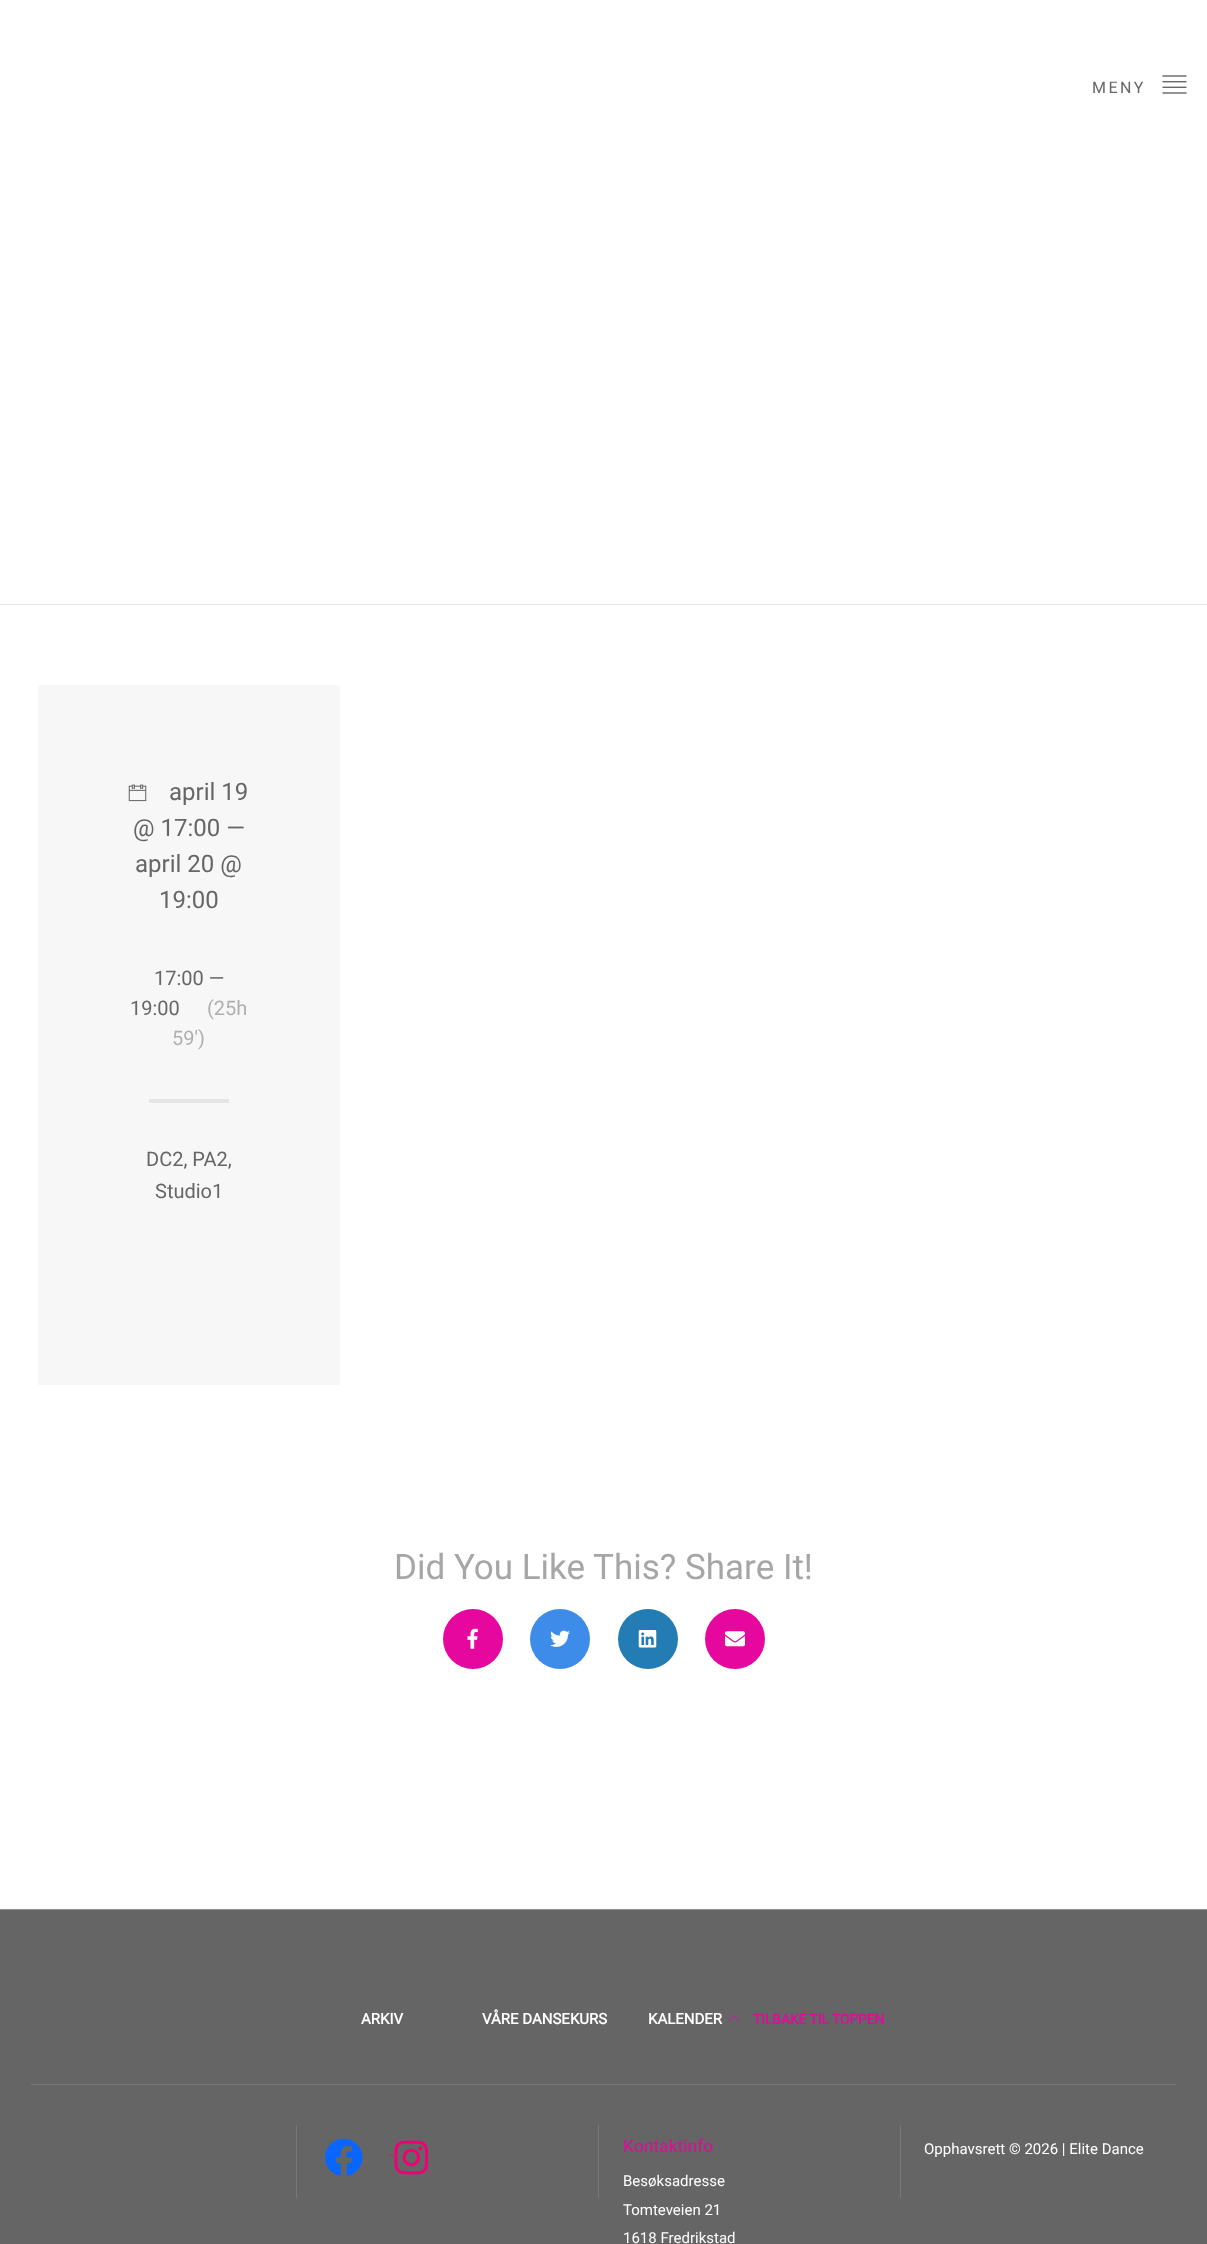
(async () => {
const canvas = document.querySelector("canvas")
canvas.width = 1207
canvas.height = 2244
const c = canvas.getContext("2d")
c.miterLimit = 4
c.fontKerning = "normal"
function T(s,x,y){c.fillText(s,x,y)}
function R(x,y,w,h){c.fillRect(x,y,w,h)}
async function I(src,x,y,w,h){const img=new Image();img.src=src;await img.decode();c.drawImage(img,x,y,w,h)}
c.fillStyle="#fff"
R(0,0,1207,2244)
c.letterSpacing="2.5px"
c.font="16px Roboto"
c.fillStyle="#666"
T("MENY",1092,93)
await I("1.png",1162,75,25,19)
c.fillStyle="#e8e8e8"
R(0,604,1207,1)
await I("2.png",128,784,19,18)
c.fillStyle="#6666660d"
R(38,685,302,700)
c.letterSpacing="0px"
c.font="24px Roboto"
c.fillStyle="#666"
T("april 19",169,800)
T("@ 17:00 —",133,836)
T("april 20 @",135,872)
T("19:00",159,908)
c.font="20px Roboto"
T("17:00 —",154,985)
T("19:00",130,1015)
c.fillStyle="#afafaf"
T("(25h",207,1015)
T("59′)",172,1045)
c.fillStyle="#e5e5e5"
R(149,1099,80,4)
c.fillStyle="#666"
T("DC2, PA2,",146,1166)
T("Studio1",155,1198)
c.font="35px Roboto"
c.fillStyle="#a6a6a6"
T("Did You Like This? Share It!",394,1579)
c.fillStyle="#e5079e"
c.beginPath()
c.arc(473,1639,30,0,7)
c.fill()
await I("3.png",467,1628,11,21)
c.fillStyle="#3d8cea"
c.beginPath()
c.arc(560,1639,30,0,7)
c.fill()
await I("4.png",550,1630,20,17)
c.fillStyle="#237cb4"
c.beginPath()
c.arc(648,1639,30,0,7)
c.fill()
await I("5.png",638,1630,19,18)
c.fillStyle="#e5079e"
c.beginPath()
c.arc(735,1639,30,0,7)
c.fill()
await I("6.png",725,1631,20,16)
c.fillStyle="#656565"
R(0,1910,1207,334)
c.fillStyle="#8f8f8f"
R(0,1909,1207,1)
c.font="bold 15px Roboto"
c.fillStyle="#fff"
T("ARKIV",361,2024)
T("VÅRE DANSEKURS",482,2024)
T("KALENDER",648,2024)
await I("7.png",728,2015,12,7)
c.font="bold 13.75px Roboto"
c.fillStyle="#e5079e"
T("TILBAKE TIL TOPPEN",753,2024)
c.fillStyle="#787878"
R(31,2084,1145,1)
R(296,2125,1,73)
await I("8.png",325,2138,38,38)
await I("9.png",394,2140,35,35)
c.font="14px Roboto"
c.fillStyle="#b12e6e"
T("—",388,2160)
c.fillStyle="#787878"
R(598,2125,1,73)
c.font="17.5px Roboto"
c.fillStyle="#e5079e"
T("Kontaktinfo",623,2152)
c.font="15px Roboto"
c.fillStyle="#fff"
T("Besøksadresse",623,2186)
T("Tomteveien 21",623,2215)
T("1618 Fredrikstad",623,2243)
c.fillStyle="#787878"
R(900,2125,1,73)
c.fillStyle="#fff"
T("Opphavsrett © 2026 | Elite Dance",924,2154)
})()
